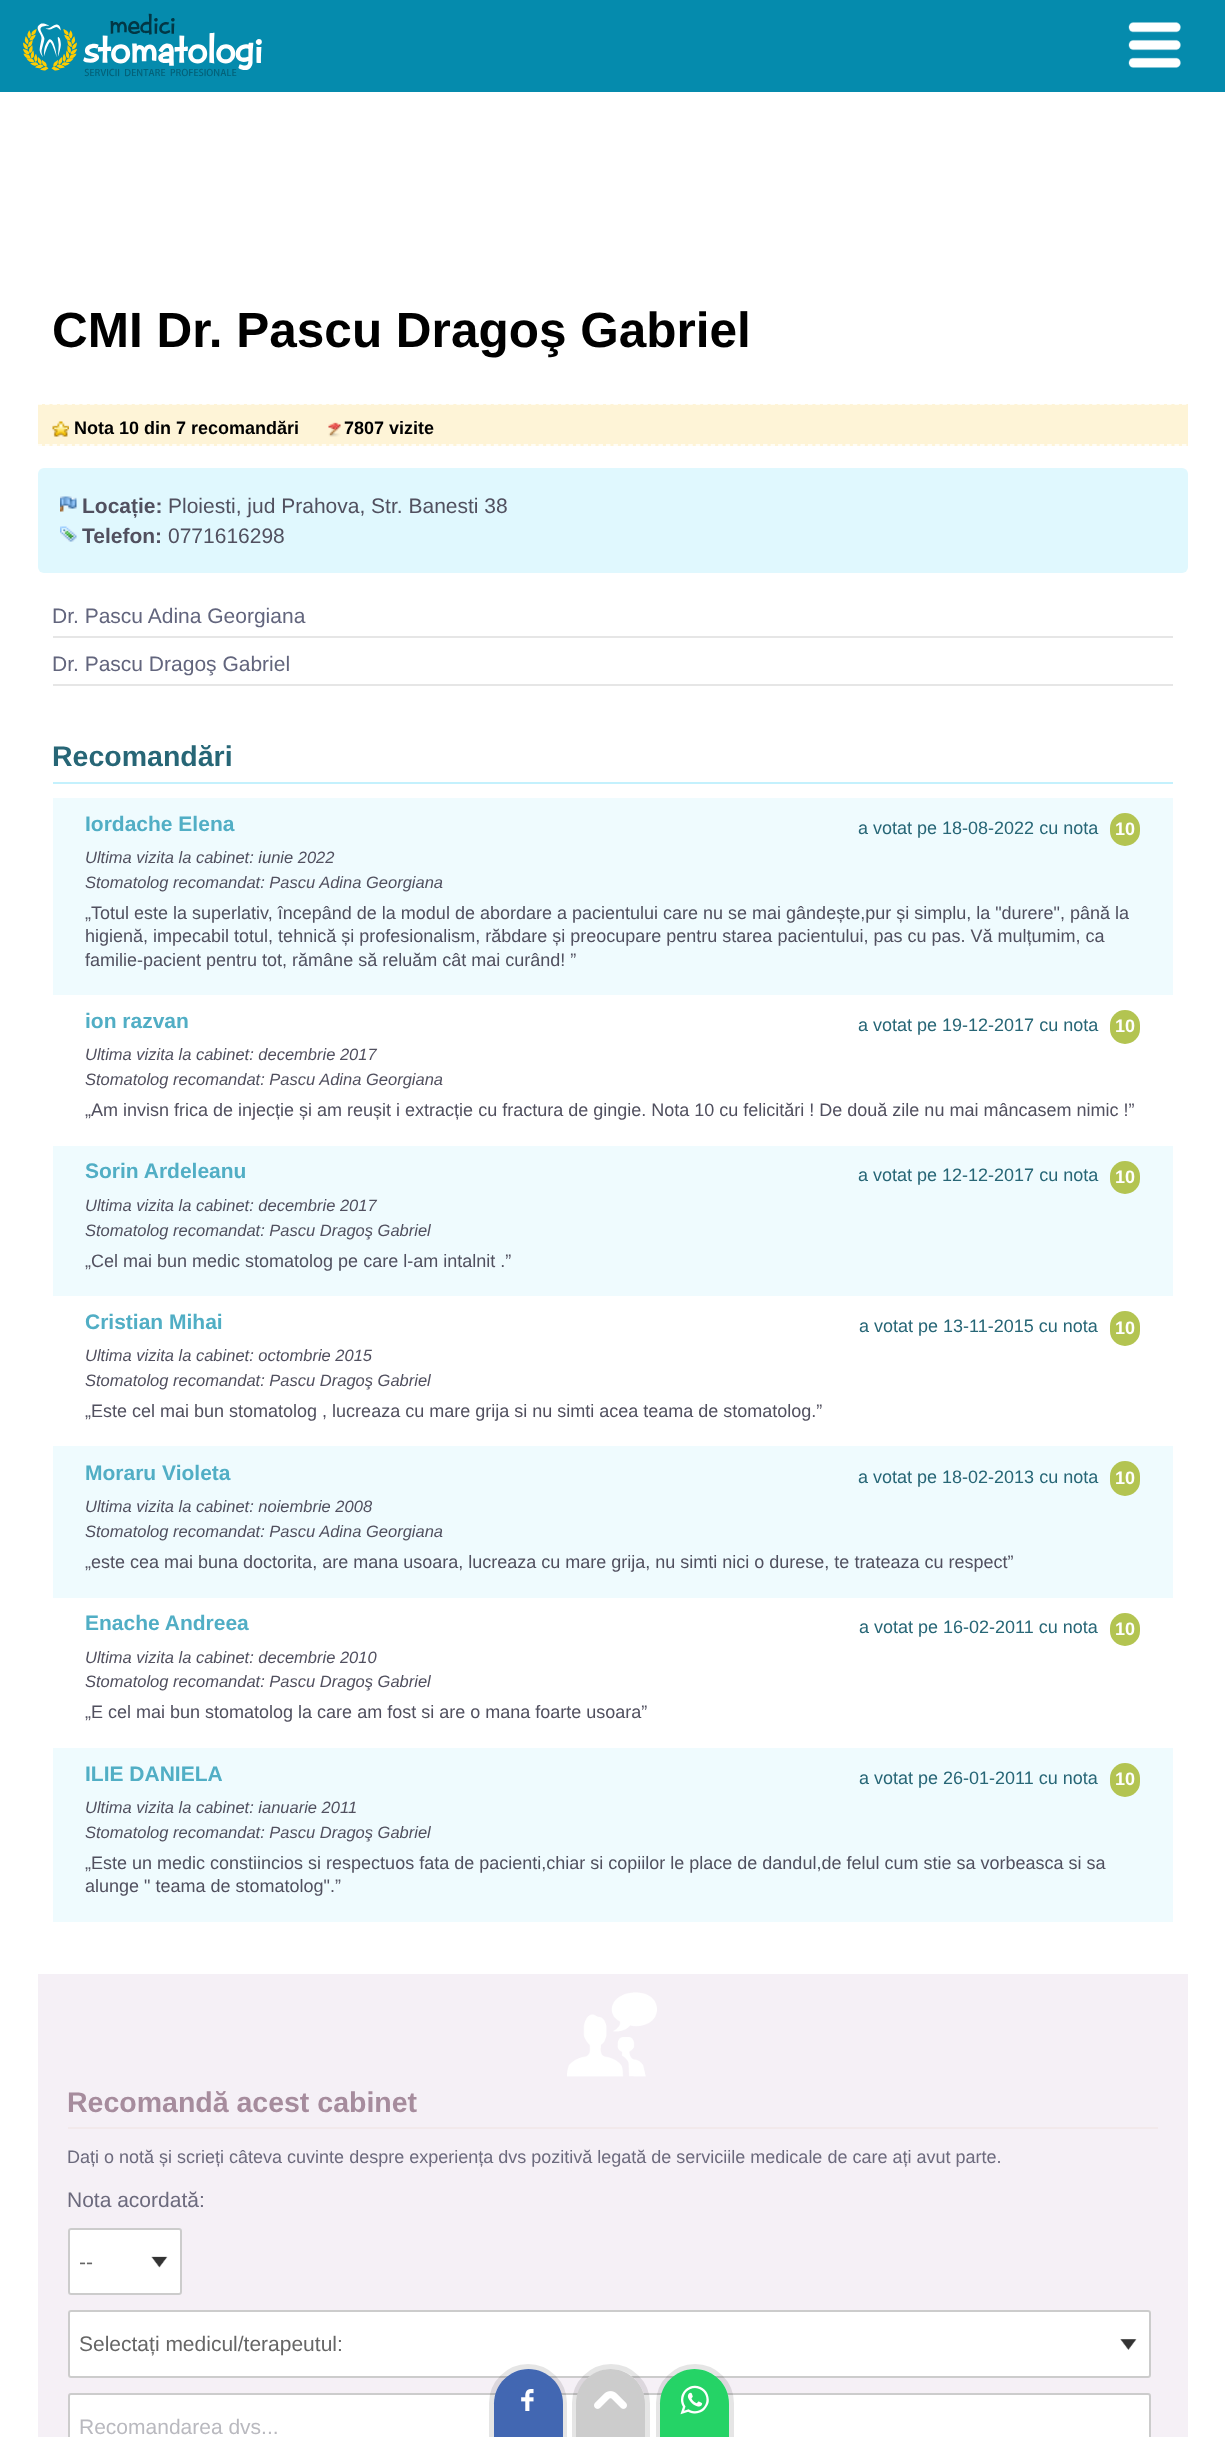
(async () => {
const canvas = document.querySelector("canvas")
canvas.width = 1225
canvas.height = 2437
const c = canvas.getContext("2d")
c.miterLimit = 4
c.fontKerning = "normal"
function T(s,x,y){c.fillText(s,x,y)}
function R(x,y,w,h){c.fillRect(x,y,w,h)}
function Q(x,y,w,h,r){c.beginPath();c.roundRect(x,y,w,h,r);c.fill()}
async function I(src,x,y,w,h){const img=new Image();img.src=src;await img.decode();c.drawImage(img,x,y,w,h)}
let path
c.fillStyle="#fff"
R(0,0,1225,2437)
c.fillStyle="#058bad"
R(0,0,1225,92)
await I("1.png",23,13,239,64)
await I("2.png",1128,22,53,46)
c.font="bold 49.5px Liberation Sans"
c.fillStyle="#000"
T("CMI Dr. Pascu Dragoş Gabriel",52,347)
c.fillStyle="#fef4d7"
R(38,404,1150,42)
path = new Path2D("M37.5 404h1150.5")
c.strokeStyle="#fff"
c.lineWidth=1.5
c.setLineDash([4.5,2.98])
c.stroke(path)
path = new Path2D("M37.5 445h1150.5")
c.stroke(path)
await I("3.png",52,421,17,16)
c.font="bold 18px Liberation Sans"
c.fillStyle="#000"
T("Nota 10 din 7 recomandări",74,434)
await I("4.png",328,422,13,15)
T("7807 vizite",344,434)
c.fillStyle="#e0f8fe"
Q(38,468,1150,105,6)
await I("5.png",60,496,17,16)
c.font="bold 21px Liberation Sans"
c.fillStyle="#51505f"
T("Locație:",82,513)
c.font="21px Liberation Sans"
T("Ploiesti, jud Prahova, Str. Banesti 38",168,513)
await I("6.png",60,526,17,16)
c.font="bold 21px Liberation Sans"
T("Telefon:",82,543)
c.font="21px Liberation Sans"
T("0771616298",168,543)
c.fillStyle="#e6e6e6"
R(53,636,1120,2)
c.fillStyle="#62657d"
T("Dr. Pascu Adina Georgiana",52,623)
c.fillStyle="#e6e6e6"
R(53,684,1120,2)
c.fillStyle="#62657d"
T("Dr. Pascu Dragoş Gabriel",52,671)
c.fillStyle="#c4f1fd"
R(53,782,1120,2)
c.font="bold 28.5px Liberation Sans"
c.fillStyle="#276676"
T("Recomandări",52,766)
c.fillStyle="#effbfe"
R(53,798,1120,197)
c.font="bold 21px Liberation Sans"
c.fillStyle="#51aec5"
T("Iordache Elena",85,831)
c.font="18px Liberation Sans"
c.fillStyle="#276676"
T("a votat pe 18-08-2022 cu nota",858,834)
c.fillStyle="#b3c451"
Q(1110,813,30,33,15)
c.font="bold 18px Liberation Sans"
c.fillStyle="#fff"
T("10",1115,835)
c.font="italic 16.5px Liberation Sans"
c.fillStyle="#51505f"
T("Ultima vizita la cabinet: iunie 2022",85,863)
T("Stomatolog recomandat: Pascu Adina Georgiana",85,888)
c.font="18px Liberation Sans"
T("„Totul este la superlativ, începând de la modul de abordare a pacientului care nu se mai gândește,pur și simplu, la \"durere\", până la",85,919)
T("higienă, impecabil totul, tehnică și profesionalism, răbdare și preocupare pentru starea pacientului, pas cu pas. Vă mulțumim, ca",85,942)
T("familie-pacient pentru tot, rămâne să reluăm cât mai curând! ”",85,966)
c.font="bold 21px Liberation Sans"
c.fillStyle="#51aec5"
T("ion razvan",85,1028)
c.font="18px Liberation Sans"
c.fillStyle="#276676"
T("a votat pe 19-12-2017 cu nota",858,1031)
c.fillStyle="#b3c451"
Q(1110,1010,30,34,15)
c.font="bold 18px Liberation Sans"
c.fillStyle="#fff"
T("10",1115,1032)
c.font="italic 16.5px Liberation Sans"
c.fillStyle="#51505f"
T("Ultima vizita la cabinet: decembrie 2017",85,1060)
T("Stomatolog recomandat: Pascu Adina Georgiana",85,1085)
c.font="18px Liberation Sans"
T("„Am invisn frica de injecție și am reușit i extracție cu fractura de gingie. Nota 10 cu felicitări ! De două zile nu mai mâncasem nimic !”",85,1116)
c.fillStyle="#effbfe"
R(53,1146,1120,150)
c.font="bold 21px Liberation Sans"
c.fillStyle="#51aec5"
T("Sorin Ardeleanu",85,1178)
c.font="18px Liberation Sans"
c.fillStyle="#276676"
T("a votat pe 12-12-2017 cu nota",858,1181)
c.fillStyle="#b3c451"
Q(1110,1161,30,33,15)
c.font="bold 18px Liberation Sans"
c.fillStyle="#fff"
T("10",1115,1183)
c.font="italic 16.5px Liberation Sans"
c.fillStyle="#51505f"
T("Ultima vizita la cabinet: decembrie 2017",85,1211)
T("Stomatolog recomandat: Pascu Dragoş Gabriel",85,1236)
c.font="18px Liberation Sans"
T("„Cel mai bun medic stomatolog pe care l-am intalnit .”",85,1267)
c.font="bold 21px Liberation Sans"
c.fillStyle="#51aec5"
T("Cristian Mihai",85,1329)
c.font="18px Liberation Sans"
c.fillStyle="#276676"
T("a votat pe 13-11-2015 cu nota",859,1332)
c.fillStyle="#b3c451"
Q(1110,1311,30,35,15)
c.font="bold 18px Liberation Sans"
c.fillStyle="#fff"
T("10",1115,1334)
c.font="italic 16.5px Liberation Sans"
c.fillStyle="#51505f"
T("Ultima vizita la cabinet: octombrie 2015",85,1361)
T("Stomatolog recomandat: Pascu Dragoş Gabriel",85,1386)
c.font="18px Liberation Sans"
T("„Este cel mai bun stomatolog , lucreaza cu mare grija si nu simti acea teama de stomatolog.”",85,1417)
c.fillStyle="#effbfe"
R(53,1446,1120,152)
c.font="bold 21px Liberation Sans"
c.fillStyle="#51aec5"
T("Moraru Violeta",85,1480)
c.font="18px Liberation Sans"
c.fillStyle="#276676"
T("a votat pe 18-02-2013 cu nota",858,1483)
c.fillStyle="#b3c451"
Q(1110,1461,30,35,15)
c.font="bold 18px Liberation Sans"
c.fillStyle="#fff"
T("10",1115,1484)
c.font="italic 16.5px Liberation Sans"
c.fillStyle="#51505f"
T("Ultima vizita la cabinet: noiembrie 2008",85,1512)
T("Stomatolog recomandat: Pascu Adina Georgiana",85,1537)
c.font="18px Liberation Sans"
T("„este cea mai buna doctorita, are mana usoara, lucreaza cu mare grija, nu simti nici o durese, te trateaza cu respect”",85,1568)
c.font="bold 21px Liberation Sans"
c.fillStyle="#51aec5"
T("Enache Andreea",85,1630)
c.font="18px Liberation Sans"
c.fillStyle="#276676"
T("a votat pe 16-02-2011 cu nota",859,1633)
c.fillStyle="#b3c451"
Q(1110,1613,30,33,15)
c.font="bold 18px Liberation Sans"
c.fillStyle="#fff"
T("10",1115,1635)
c.font="italic 16.5px Liberation Sans"
c.fillStyle="#51505f"
T("Ultima vizita la cabinet: decembrie 2010",85,1663)
T("Stomatolog recomandat: Pascu Dragoş Gabriel",85,1687)
c.font="18px Liberation Sans"
T("„E cel mai bun stomatolog la care am fost si are o mana foarte usoara”",85,1718)
c.fillStyle="#effbfe"
R(53,1748,1120,174)
c.font="bold 21px Liberation Sans"
c.fillStyle="#51aec5"
T("ILIE DANIELA",85,1781)
c.font="18px Liberation Sans"
c.fillStyle="#276676"
T("a votat pe 26-01-2011 cu nota",859,1784)
c.fillStyle="#b3c451"
Q(1110,1763,30,34,15)
c.font="bold 18px Liberation Sans"
c.fillStyle="#fff"
T("10",1115,1785)
c.font="italic 16.5px Liberation Sans"
c.fillStyle="#51505f"
T("Ultima vizita la cabinet: ianuarie 2011",85,1813)
T("Stomatolog recomandat: Pascu Dragoş Gabriel",85,1838)
c.font="18px Liberation Sans"
T("„Este un medic constiincios si respectuos fata de pacienti,chiar si copiilor le place de dandul,de felul cum stie sa vorbeasca si sa",85,1869)
T("alunge \" teama de stomatolog\".”",85,1892)
c.fillStyle="#f5f0f6"
R(38,1974,1150,463)
await I("7.png",567,1992,90,85)
c.fillStyle="#f2e9eb"
R(68,2127,1090,2)
c.font="bold 28.5px Liberation Sans"
c.fillStyle="#a68c9d"
T("Recomandă acest cabinet",67,2112)
c.font="18px Liberation Sans"
c.fillStyle="#6c6a7d"
T("Dați o notă și scrieți câteva cuvinte despre experiența dvs pozitivă legată de serviciile medicale de care ați avut parte.",67,2163)
c.font="21px Liberation Sans"
T("Nota acordată:",67,2207)
c.fillStyle="#fff"
Q(68,2228,114,67,3)
await I("8.png",151,2256,17,12)
c.beginPath()
c.roundRect(69,2229,112,65,2)
c.strokeStyle="#ccc"
c.lineWidth=2
c.setLineDash([])
c.stroke()
c.save()
c.beginPath()
c.rect(80,2243,90,37)
c.clip()
c.fillStyle="#666"
T("--",79,2269)
c.restore()
Q(68,2310,1083,68,3)
await I("9.png",1120,2339,17,11)
c.beginPath()
c.roundRect(69,2311,1081,66,2)
c.stroke()
c.fillStyle="#666"
T("Selectați medicul/terapeutul:",79,2351)
c.fillStyle="#fff"
c.beginPath()
c.roundRect(69,2394,1081,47,2)
c.fill()
c.stroke()
c.fillStyle="#b9b9bf"
T("Recomandarea dvs...",79,2434)
path = new Path2D("M528 2366.5c20 0 36.5 16.5 36.5 36.5v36.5h-73v-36.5c0-20 16.5-36.5 36.5-36.5z")
c.strokeStyle="#0000001a"
c.lineWidth=5
c.stroke(path)
c.fillStyle="#4267b2"
path = new Path2D("M528.5 2369c19 0 34.5 15.5 34.5 34.5v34.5h-69v-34.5c0-19 15.5-34.5 34.5-34.5z")
c.fill(path)
await I("10.png",521,2389,13,22)
path = new Path2D("M611 2366.5c20 0 36.5 16.5 36.5 36.5v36.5h-73v-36.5c0-20 16.5-36.5 36.5-36.5z")
c.stroke(path)
c.fillStyle="#ccc"
path = new Path2D("M610.5 2369c19 0 34.5 15.5 34.5 34.5v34.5h-69v-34.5c0-19 15.5-34.5 34.5-34.5z")
c.fill(path)
await I("11.png",594,2391,33,18)
path = new Path2D("M695 2366.5c20 0 36.5 16.5 36.5 36.5v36.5h-73v-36.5c0-20 16.5-36.5 36.5-36.5z")
c.stroke(path)
c.fillStyle="#25d366"
path = new Path2D("M694.5 2369c19 0 34.5 15.5 34.5 34.5v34.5h-69v-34.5c0-19 15.5-34.5 34.5-34.5z")
c.fill(path)
await I("12.png",680,2385,29,30)
})()
